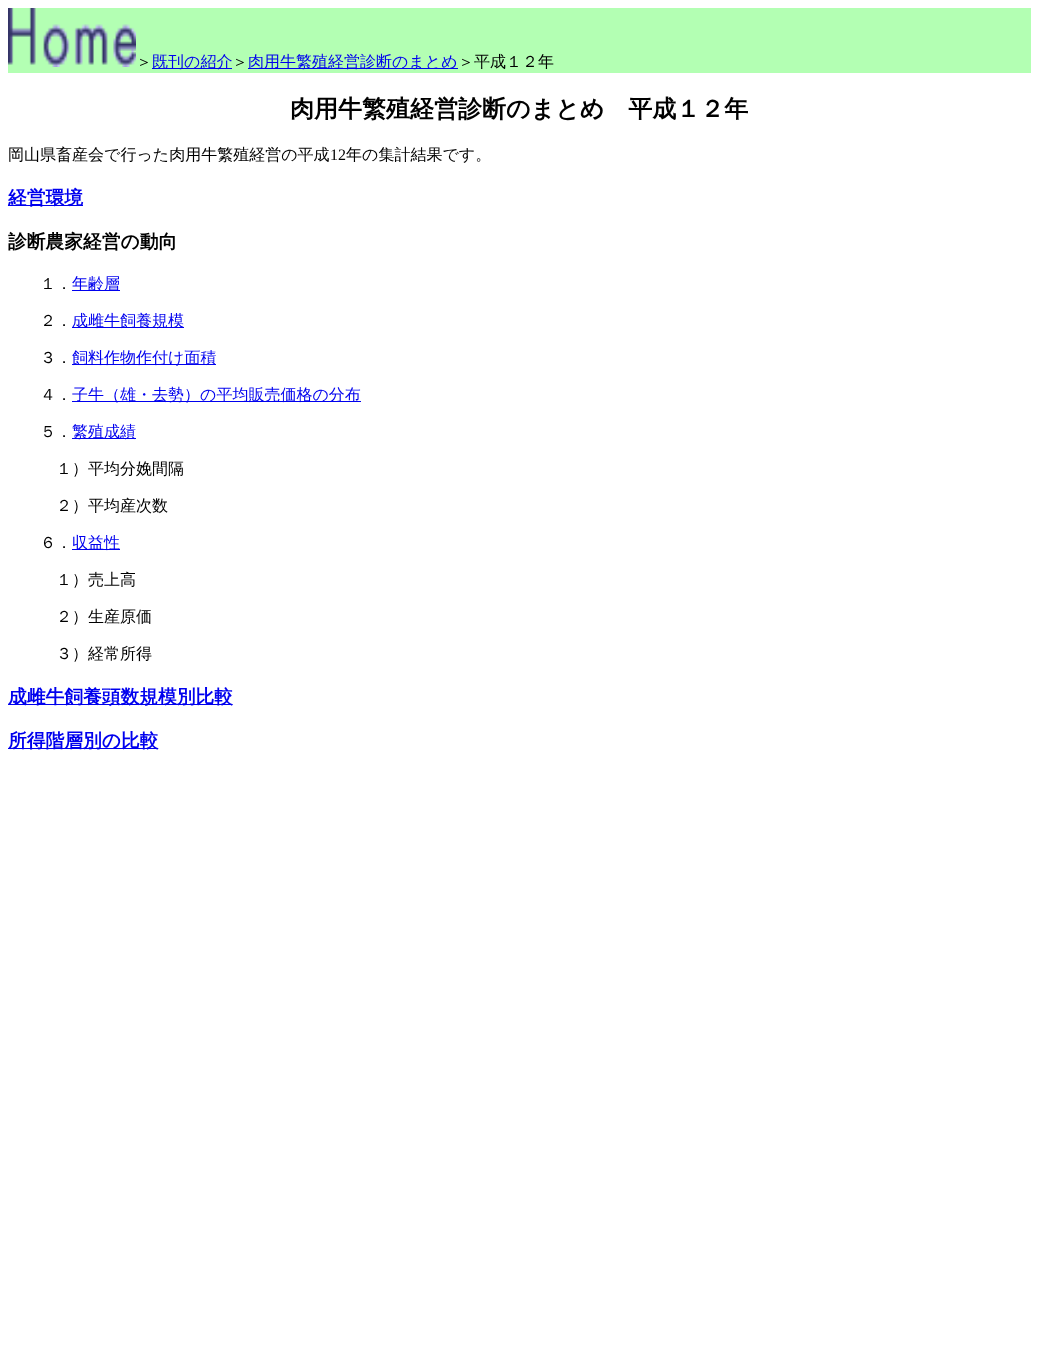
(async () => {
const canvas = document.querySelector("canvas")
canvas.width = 1039
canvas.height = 1348
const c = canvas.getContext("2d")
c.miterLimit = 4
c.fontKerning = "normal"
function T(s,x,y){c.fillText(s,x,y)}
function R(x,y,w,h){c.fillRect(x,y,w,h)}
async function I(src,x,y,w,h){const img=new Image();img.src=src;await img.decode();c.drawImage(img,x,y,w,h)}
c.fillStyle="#fff"
R(0,0,1039,1348)
c.fillStyle="#b3ffb3"
R(8,8,1023,65)
await I("1.png",8,8,128,59)
c.font="500 16px WenQuanYi Zen Hei"
c.fillStyle="#000"
T("＞",136,67)
c.fillStyle="#00e"
R(152,68,80,1)
T("既刊の紹介",152,67)
c.fillStyle="#000"
T("＞",232,67)
c.fillStyle="#00e"
R(248,68,210,1)
T("肉用牛繁殖経営診断のまとめ",248,67)
c.fillStyle="#000"
T("＞平成１２年",458,67)
c.font="bold 24px WenQuanYi Zen Hei"
T("肉用牛繁殖経営診断のまとめ　平成１２年",290,117)
c.font="500 16px WenQuanYi Zen Hei"
T("岡山県畜産会で行った肉用牛繁殖経営の平成",8,160)
c.font="16px Liberation Serif"
T("12",330,160)
c.font="500 16px WenQuanYi Zen Hei"
T("年の集計結果です。",346,160)
c.fillStyle="#00e"
R(8,205,75,1)
c.font="bold 18.75px WenQuanYi Zen Hei"
T("経営環境",8,204)
c.fillStyle="#000"
T("診断農家経営の動向",8,248)
c.font="500 16px WenQuanYi Zen Hei"
T("１．",40,289)
c.fillStyle="#00e"
R(72,290,48,1)
T("年齢層",72,289)
c.fillStyle="#000"
T("２．",40,326)
c.fillStyle="#00e"
R(72,327,112,1)
T("成雌牛飼養規模",72,326)
c.fillStyle="#000"
T("３．",40,363)
c.fillStyle="#00e"
R(72,364,144,1)
T("飼料作物作付け面積",72,363)
c.fillStyle="#000"
T("４．",40,400)
c.fillStyle="#00e"
R(72,401,289,1)
T("子牛（雄・去勢）の平均販売価格の分布",72,400)
c.fillStyle="#000"
T("５．",40,437)
c.fillStyle="#00e"
R(72,438,64,1)
T("繁殖成績",72,437)
c.fillStyle="#000"
T("１）平均分娩間隔",56,474)
T("２）平均産次数",56,511)
T("６．",40,548)
c.fillStyle="#00e"
R(72,549,48,1)
T("収益性",72,548)
c.fillStyle="#000"
T("１）売上高",56,585)
T("２）生産原価",56,622)
T("３）経常所得",56,659)
c.fillStyle="#00e"
R(8,704,224,1)
c.font="bold 18.75px WenQuanYi Zen Hei"
T("成雌牛飼養頭数規模別比較",8,703)
R(8,748,150,1)
T("所得階層別の比較",8,747)
})()
